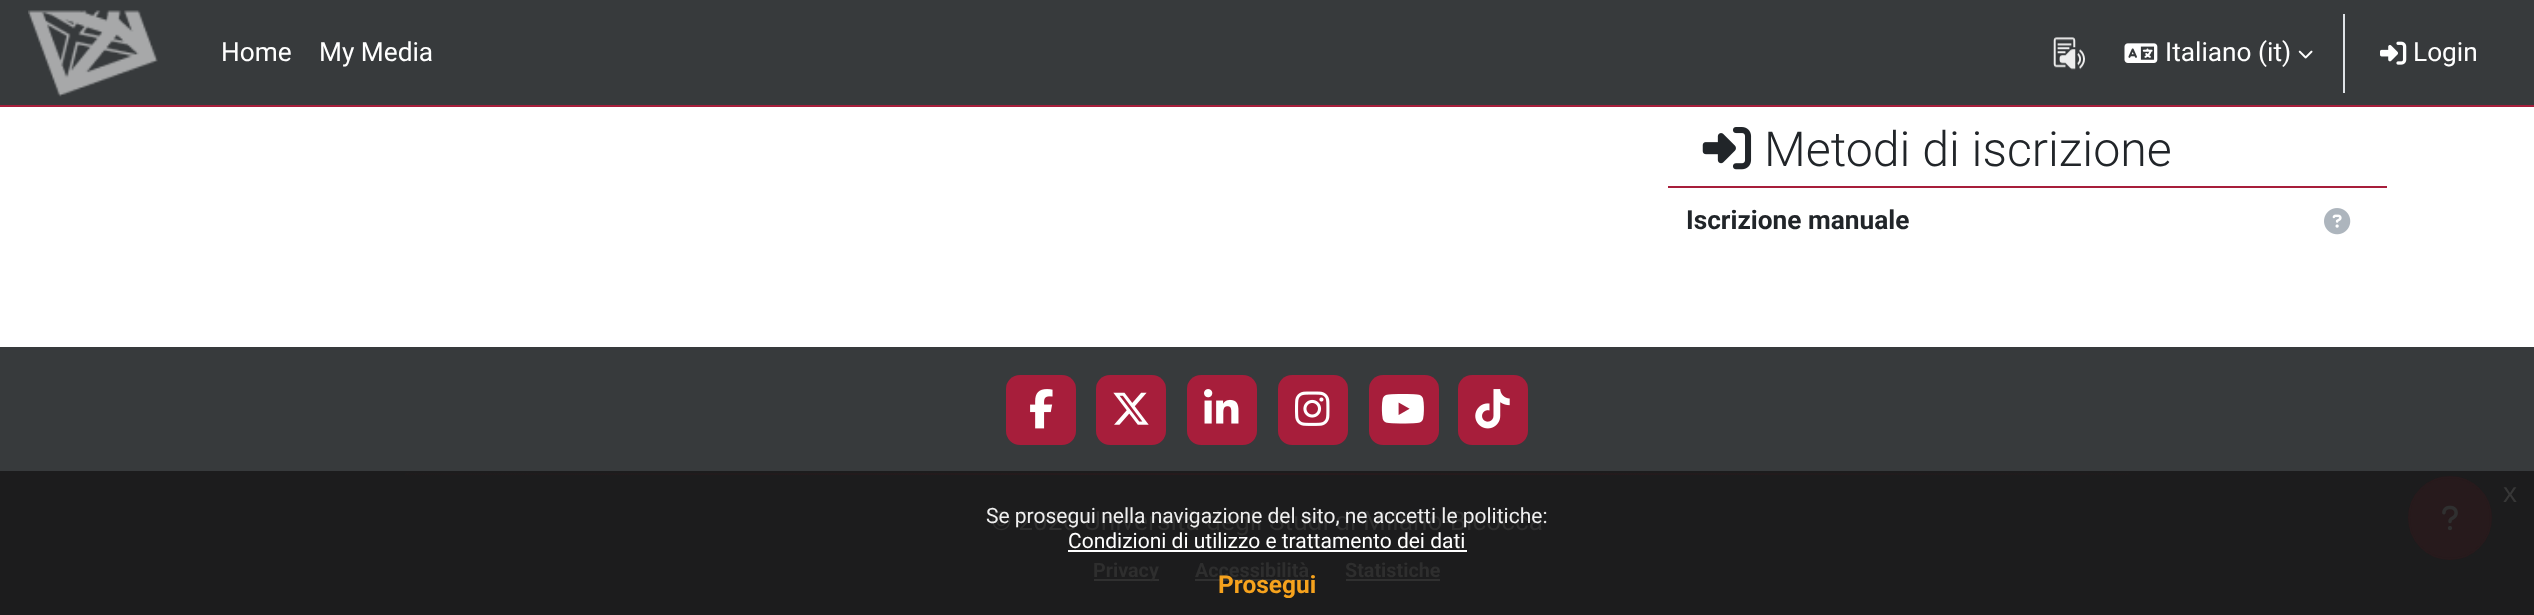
(async () => {
const canvas = document.querySelector("canvas")
canvas.width = 2534
canvas.height = 615
const c = canvas.getContext("2d")
c.miterLimit = 4
c.fontKerning = "normal"
function T(s,x,y){c.fillText(s,x,y)}
function R(x,y,w,h){c.fillRect(x,y,w,h)}
function Q(x,y,w,h,r){c.beginPath();c.roundRect(x,y,w,h,r);c.fill()}
async function I(src,x,y,w,h){const img=new Image();img.src=src;await img.decode();c.drawImage(img,x,y,w,h)}
let gradient
c.fillStyle="#fff"
R(0,0,2534,615)
c.fillStyle="#373a3c"
R(0,0,2534,105)
c.fillStyle="#a71e3b"
R(0,105,2534,2)
await I("1.png",28,10,130,87)
c.font="26.25px Roboto"
c.fillStyle="#fff"
T("Home",221,61)
T("My Media",319,61)
await I("2.png",2053,37,32,33)
await I("3.png",2124,43,34,20)
T("Italiano (it)",2165,61)
await I("4.png",2298,50,15,9)
c.fillStyle="#dee2e6"
R(2343,14,2,79)
await I("5.png",2380,41,27,24)
c.fillStyle="#fff"
T("Login",2413,61)
c.fillStyle="#a71e3b"
R(1668,186,719,2)
await I("6.png",1702,127,50,43)
c.font="300 48.25px Roboto"
c.fillStyle="#212529"
T("Metodi di iscrizione",1764,166)
c.font="bold 26.25px Roboto"
T("Iscrizione manuale",1686,229)
await I("7.png",2324,208,27,27)
c.fillStyle="#373a3c"
R(0,347,2534,124)
c.fillStyle="#1c1c1d"
R(0,471,2534,144)
c.fillStyle="#a71e3b"
Q(1006,375,70,70,14)
await I("8.png",1030,389,23,40)
Q(1096,375,70,70,14)
await I("9.png",1113,392,36,33)
Q(1187,375,70,70,14)
await I("10.png",1204,389,35,35)
Q(1278,375,70,70,14)
await I("11.png",1295,391,35,35)
Q(1369,375,70,70,14)
await I("12.png",1381,394,43,30)
Q(1458,375,70,70,14)
await I("13.png",1475,389,35,40)
gradient = c.createLinearGradient(151,473,2384,473)
gradient.addColorStop(0,"#1c1c1d")
gradient.addColorStop(.5,"#271a1c")
gradient.addColorStop(1,"#1c1c1d")
c.fillStyle = gradient
R(405,473,1725,2)
c.font="26.25px Roboto"
c.fillStyle="#2e2e2e"
T("© 2026 Università degli Studi di Milano-Bicocca",991,530)
c.fillStyle="#303030"
R(1094,579,65,2)
c.font="bold 19.75px Roboto"
c.fillStyle="#2e2e2e"
T("Privacy",1093,577)
T("Accessibilità",1195,577)
c.fillStyle="#303030"
R(1195,579,114,2)
c.fillStyle="#2e2e2e"
T("Statistiche",1345,577)
c.fillStyle="#303030"
R(1346,579,94,2)
c.fillStyle="#271a1c"
c.beginPath()
c.arc(2450,518,41,0,7)
c.fill()
c.strokeStyle="#271a1c"
c.lineWidth=2
c.stroke()
await I("14.png",2442,505,16,26)
c.font="28px Liberation Sans"
c.fillStyle="#373737"
T("x",2503,502)
c.font="21px Roboto"
c.fillStyle="#efefef"
T("Se prosegui nella navigazione del sito, ne accetti le politiche:",986,523)
c.fillStyle="#fff"
T("Condizioni di utilizzo e trattamento dei dati",1068,548)
R(1068,550,399,2)
c.font="bold 24.5px Roboto"
c.fillStyle="#f6a21d"
T("Prosegui",1218,593)
})()
